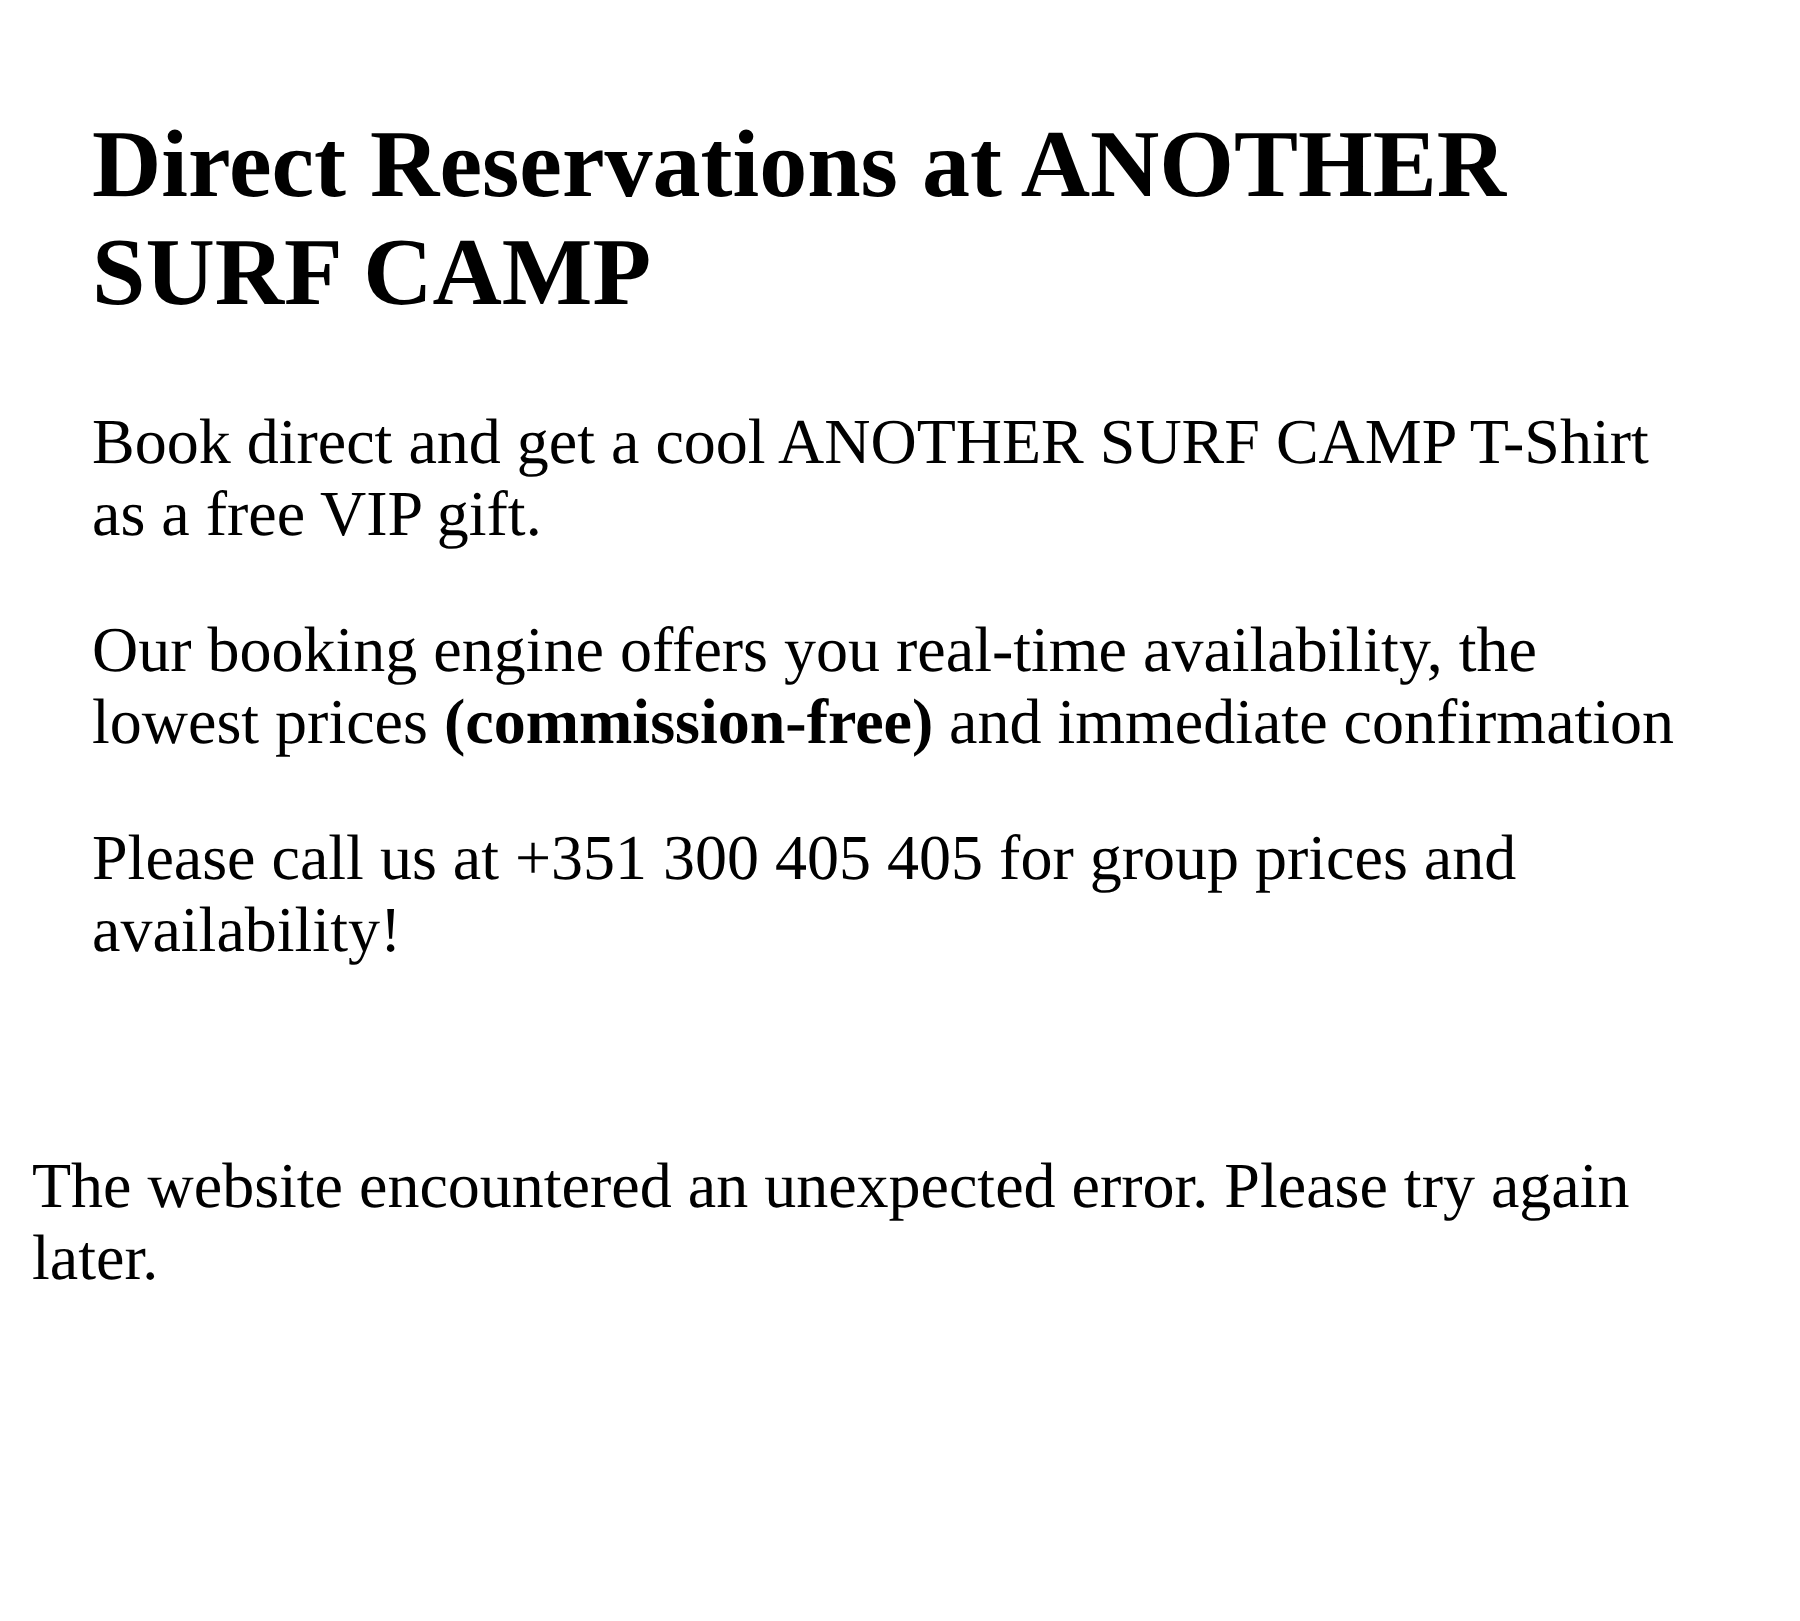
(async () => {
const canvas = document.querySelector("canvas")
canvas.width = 1800
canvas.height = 1621
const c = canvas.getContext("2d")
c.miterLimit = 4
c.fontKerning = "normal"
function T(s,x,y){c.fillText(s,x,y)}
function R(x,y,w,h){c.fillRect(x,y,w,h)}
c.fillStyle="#fff"
R(0,0,1800,1621)
c.font="bold 96px Liberation Serif"
c.fillStyle="#000"
T("Direct Reservations at ANOTHER",92,196)
T("SURF CAMP",92,304)
c.font="64px Liberation Serif"
T("Book direct and get a cool ANOTHER SURF CAMP T-Shirt",92,463)
T("as a free VIP gift.",92,535)
T("Our booking engine offers you real-time availability, the",92,671)
T("lowest prices",92,743)
c.font="bold 64px Liberation Serif"
T("(commission-free)",444,743)
c.font="64px Liberation Serif"
T("and immediate confirmation",949,743)
T("Please call us at +351 300 405 405 for group prices and",92,879)
T("availability!",92,951)
T("The website encountered an unexpected error. Please try again",32,1207)
T("later.",32,1279)
})()
